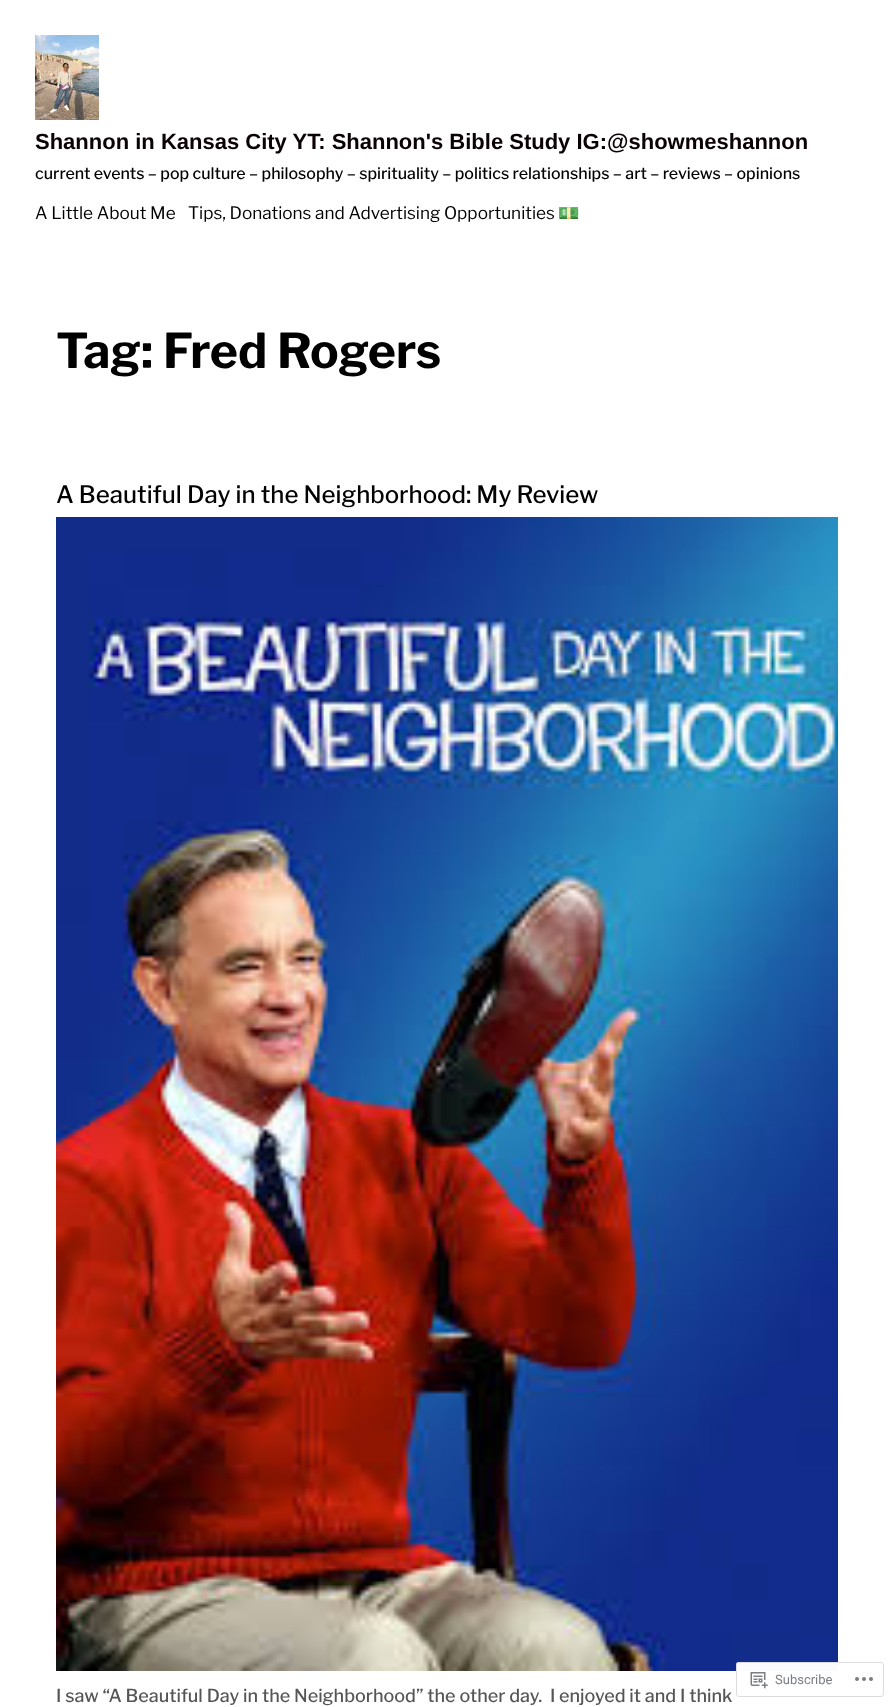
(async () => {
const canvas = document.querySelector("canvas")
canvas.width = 894
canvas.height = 1707
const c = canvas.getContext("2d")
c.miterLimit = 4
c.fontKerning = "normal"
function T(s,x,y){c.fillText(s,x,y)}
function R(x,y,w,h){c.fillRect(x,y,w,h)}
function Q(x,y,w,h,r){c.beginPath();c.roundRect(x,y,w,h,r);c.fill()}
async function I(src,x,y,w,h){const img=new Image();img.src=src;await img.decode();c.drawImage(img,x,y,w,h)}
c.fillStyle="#fff"
R(0,0,894,1707)
await I("1.png",35,35,64,85)
c.font="bold 22px Liberation Sans"
c.fillStyle="#0b0003"
T("Shannon in Kansas City YT: Shannon's Bible Study IG:@showmeshannon",35,149)
c.font="500 16px Libre Franklin"
c.fillStyle="#000"
T("current events – pop culture – philosophy – spirituality – politics relationships – art – reviews – opinions",35,179)
c.font="17.2px Libre Franklin"
T("A Little About Me",35,219)
T("Tips, Donations and Advertising Opportunities",188,219)
c.font="17.2px Noto Color Emoji"
T("💵",558,219)
c.font="bold 48px Libre Franklin"
T("Tag: Fred Rogers",56,368)
c.font="500 24px Libre Franklin"
T("A Beautiful Day in the Neighborhood: My Review",56,503)
await I("2.png",56,517,782,1154)
c.font="500 18px Libre Franklin"
c.fillStyle="#555"
T("I saw “A Beautiful Day in the Neighborhood” the other day.  I enjoyed it and I think",56,1702)
c.fillStyle="#fffffffa"
Q(736,1662,148,35,3)
c.beginPath()
c.roundRect(736.5,1662.5,147,34,2.5)
c.strokeStyle="#dcdcdefa"
c.stroke()
await I("3.png",750,1672,18,17)
c.font="13px Roboto"
c.fillStyle="#7b7f85"
T("Subscribe",775,1684)
await I("4.png",855,1677,18,4)
})()
